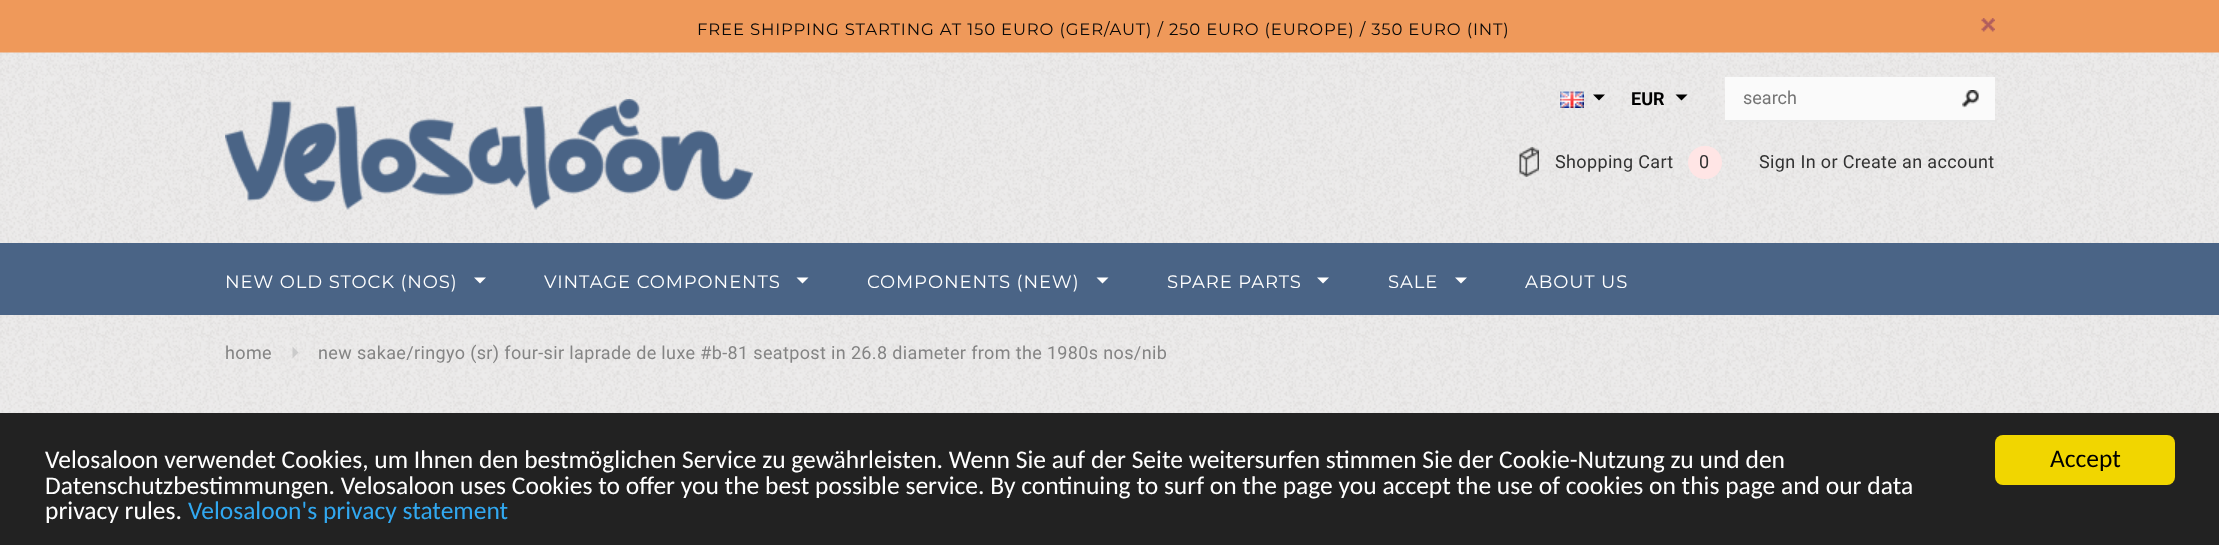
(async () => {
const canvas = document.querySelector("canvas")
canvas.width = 2219
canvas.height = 545
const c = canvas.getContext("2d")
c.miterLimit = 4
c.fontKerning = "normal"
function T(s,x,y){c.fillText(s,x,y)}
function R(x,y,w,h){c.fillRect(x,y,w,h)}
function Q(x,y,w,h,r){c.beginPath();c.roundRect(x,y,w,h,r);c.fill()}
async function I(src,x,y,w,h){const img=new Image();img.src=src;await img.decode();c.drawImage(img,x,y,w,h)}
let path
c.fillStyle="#fff"
R(0,0,2219,545)
await I("1.png",0,315,2219,98)
c.fillStyle="#ef995a"
R(0,0,2219,53)
c.letterSpacing="0.83px"
c.font="16.5px Montserrat"
c.fillStyle="#080808"
T("FREE SHIPPING STARTING AT 150 EURO (GER/AUT) / 250 EURO (EUROPE) / 350 EURO (INT)",697,35)
await I("2.png",1981,18,14,14)
await I("3.png",0,52,2219,191)
await I("4.png",1560,91,24,17)
c.fillStyle="#000"
path = new Path2D("M1593 94.5h12l-6 6z")
c.fill(path)
c.letterSpacing="0px"
c.font="bold 18px Roboto"
T("EUR",1631,105)
path = new Path2D("M1675.5 94.5h12l-6 6z")
c.fill(path)
c.fillStyle="#fafafa"
R(1725,77,270,43)
c.fillStyle="#e7e7e7"
R(1725,120,270,2)
c.font="18px Roboto"
c.fillStyle="#757575"
T("search",1743,104)
await I("5.png",1962,90,17,18)
await I("6.png",225,99,528,111)
await I("7.png",1519,147,20,30)
c.letterSpacing="0.36px"
c.fillStyle="#323232"
T("Shopping Cart",1555,168)
c.fillStyle="#ffe5e5"
Q(1688,146,34,33,16.5)
c.fillStyle="#323232"
T("0",1699,168)
T("Sign In or Create an account",1759,168)
c.fillStyle="#4a6486"
R(0,243,2219,72)
c.letterSpacing="0.9px"
c.font="18px Montserrat"
c.fillStyle="#fff"
T("NEW OLD STOCK (NOS)",225,288)
path = new Path2D("M474 277.5h12l-6 6z")
c.fill(path)
T("VINTAGE COMPONENTS",544,288)
path = new Path2D("M796.5 277.5h12l-6 6z")
c.fill(path)
T("COMPONENTS (NEW)",867,288)
path = new Path2D("M1096.5 277.5h12l-6 6z")
c.fill(path)
T("SPARE PARTS",1167,288)
path = new Path2D("M1317 277.5h12l-6 6z")
c.fill(path)
T("SALE",1388,288)
path = new Path2D("M1455 277.5h12l-6 6z")
c.fill(path)
T("ABOUT US",1525,288)
c.letterSpacing="0.36px"
c.font="18px Roboto"
c.fillStyle="#848484"
T("home",225,359)
c.fillStyle="#cbcbcb"
path = new Path2D("M292.5 358.5v-12l6 6z")
c.fill(path)
c.fillStyle="#848484"
T("new sakae/ringyo (sr) four-sir laprade de luxe #b-81 seatpost in 26.8 diameter from the 1980s nos/nib",318,359)
c.fillStyle="#222"
R(0,413,2219,132)
c.letterSpacing="0px"
c.font="25.5px Carlito"
c.fillStyle="#fff"
T("Velosaloon verwendet Cookies, um Ihnen den bestmöglichen Service zu gewährleisten. Wenn Sie auf der Seite weitersurfen stimmen Sie der Cookie-Nutzung zu und den",45,468)
T("Datenschutzbestimmungen. Velosaloon uses Cookies to offer you the best possible service. By continuing to surf on the page you accept the use of cookies on this page and our data",45,494)
T("privacy rules.",45,519)
c.fillStyle="#31a8f0"
T("Velosaloon's privacy statement",188,519)
c.fillStyle="#f1d600"
Q(1995,435,180,50,8)
c.fillStyle="#000"
T("Accept",2050,467)
})()
